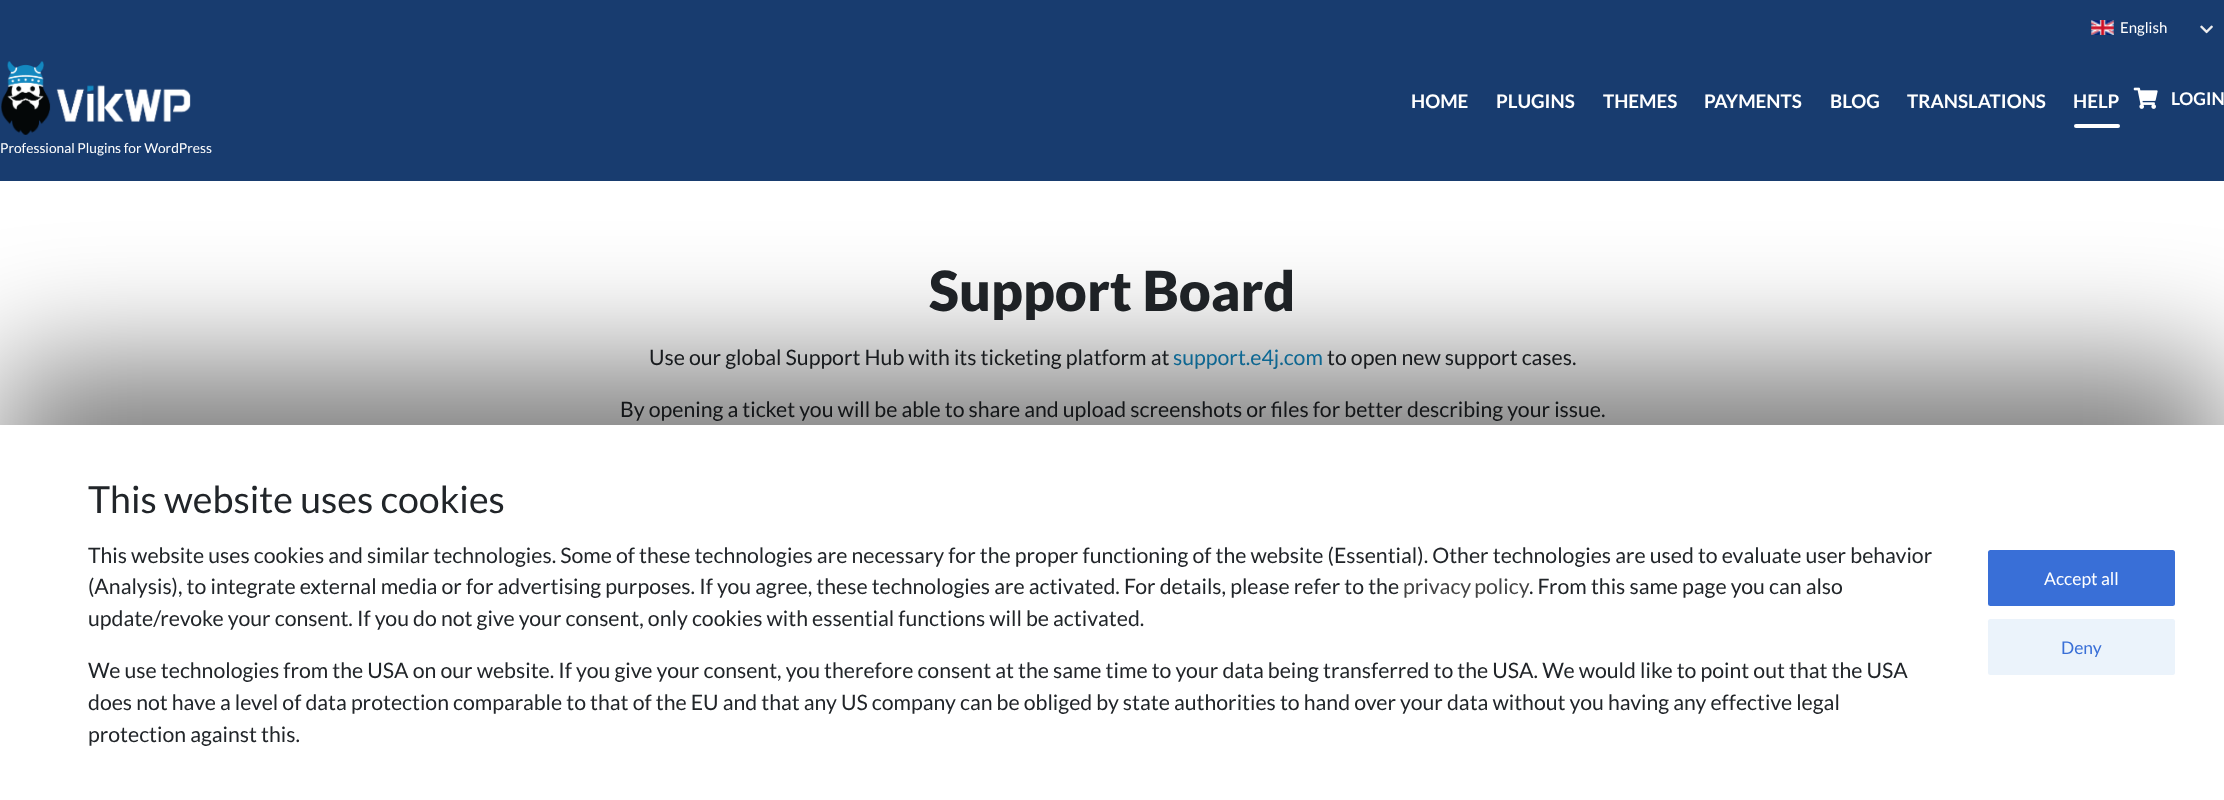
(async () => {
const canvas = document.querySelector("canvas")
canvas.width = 2224
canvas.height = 800
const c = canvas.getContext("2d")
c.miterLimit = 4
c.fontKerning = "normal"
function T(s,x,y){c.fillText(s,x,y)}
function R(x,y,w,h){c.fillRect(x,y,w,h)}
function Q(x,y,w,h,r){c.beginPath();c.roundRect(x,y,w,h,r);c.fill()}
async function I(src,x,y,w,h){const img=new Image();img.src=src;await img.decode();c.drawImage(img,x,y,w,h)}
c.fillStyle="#fff"
R(0,0,2224,800)
c.fillStyle="#183c6f"
R(0,0,2224,181)
await I("1.png",2091,20,23,15)
c.font="15px Lato"
c.fillStyle="#fff"
T("English",2120,33)
await I("2.png",2200,25,13,9)
c.font="bold 18.75px Lato"
T("HOME",1411,108)
T("PLUGINS",1496,108)
T("THEMES",1603,108)
T("PAYMENTS",1704,108)
T("BLOG",1830,108)
T("TRANSLATIONS",1907,108)
T("HELP",2073,108)
Q(2074,124,46,4,2)
await I("3.png",2133,87,25,22)
c.font="bold 17.5px Lato"
T("LOGIN",2171,105)
await I("4.png",1,61,190,74)
c.font="13.75px Lato"
T("Professional Plugins for WordPress",0,153)
c.font="900 55.25px Lato"
c.fillStyle="#212529"
T("Support Board",929,311)
c.font="21.25px Lato"
T("Use our global Support Hub with its ticketing platform at",649,365)
c.fillStyle="#1388c0"
T("support.e4j.com",1173,365)
c.fillStyle="#212529"
T("to open new support cases.",1327,365)
T("By opening a ticket you will be able to share and upload screenshots or files for better describing your issue.",620,417)
c.fillStyle="#00000080"
c.filter="blur(62.5px)"
c.beginPath()
c.rect(0,363,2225,375)
c.fill()
c.filter="none"
c.fillStyle="#fff"
R(0,425,2224,375)
c.font="37.5px Lato"
c.fillStyle="#212529"
T("This website uses cookies",88,513)
c.font="21.25px Lato"
T("This website uses cookies and similar technologies. Some of these technologies are necessary for the proper functioning of the website (Essential). Other technologies are used to evaluate user behavior",88,563)
T("(Analysis), to integrate external media or for advertising purposes. If you agree, these technologies are activated. For details, please refer to the",88,594)
c.wordSpacing="-1px"
c.fillStyle="#444"
T("privacy policy",1403,594)
c.wordSpacing="0px"
c.fillStyle="#212529"
T(". From this same page you can also",1529,594)
T("update/revoke your consent. If you do not give your consent, only cookies with essential functions will be activated.",88,626)
T("We use technologies from the USA on our website. If you give your consent, you therefore consent at the same time to your data being transferred to the USA. We would like to point out that the USA",88,678)
T("does not have a level of data protection comparable to that of the EU and that any US company can be obliged by state authorities to hand over your data without you having any effective legal",88,710)
T("protection against this.",88,742)
c.fillStyle="#396fd7"
Q(1988,550,187,56,2.5)
c.font="17.5px Lato"
c.fillStyle="#fff"
T("Accept all",2044,585)
c.fillStyle="#ebf3fb"
Q(1988,619,187,56,2.5)
c.fillStyle="#396fd7"
T("Deny",2061,654)
})()
